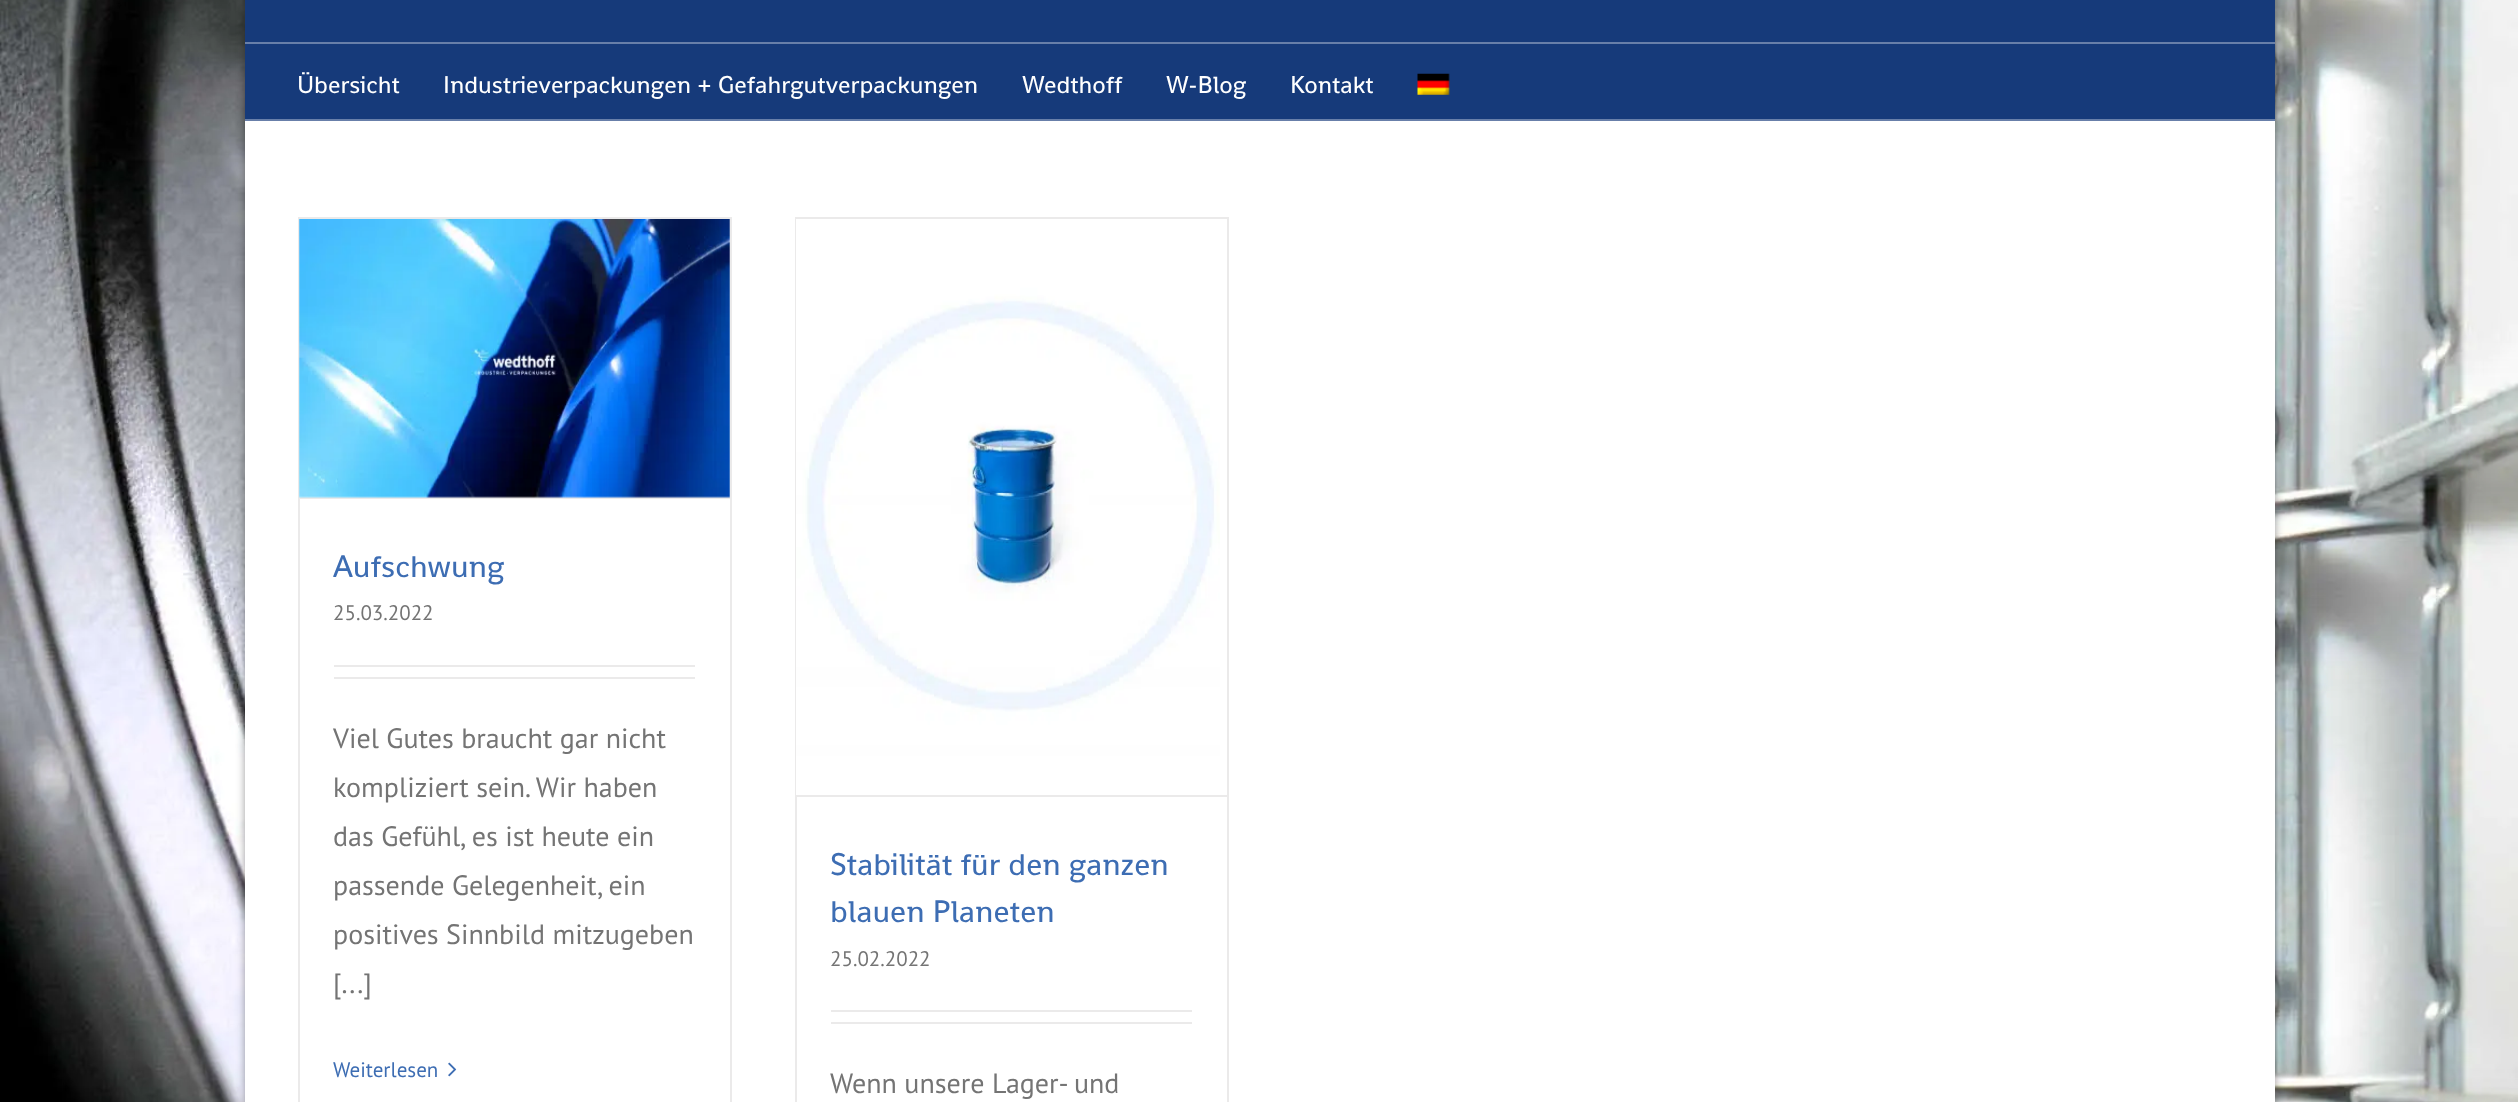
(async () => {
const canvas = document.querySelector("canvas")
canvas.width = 2518
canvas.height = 1102
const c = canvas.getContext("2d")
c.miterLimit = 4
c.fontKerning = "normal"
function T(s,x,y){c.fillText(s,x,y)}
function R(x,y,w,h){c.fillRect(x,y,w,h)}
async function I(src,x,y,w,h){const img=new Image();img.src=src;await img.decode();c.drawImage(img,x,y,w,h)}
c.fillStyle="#fff"
R(0,0,2518,1102)
await I("1.png",0,0,2518,1102)
c.fillStyle="#00000066"
c.filter="blur(4.5px)"
c.beginPath()
c.rect(245,-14,2030,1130)
c.fill()
c.filter="none"
c.fillStyle="#163a7a"
R(245,0,2030,42)
c.fillStyle="#687fa9"
R(245,42,2030,2)
c.fillStyle="#163a7a"
R(245,44,2030,75)
c.fillStyle="#687fa9"
R(245,119,2030,2)
c.font="24.5px Shanti"
c.fillStyle="#fff"
T("Übersicht",297,93)
T("Industrieverpackungen + Gefahrgutverpackungen",443,93)
T("Wedthoff",1022,93)
T("W-Blog",1166,93)
T("Kontakt",1290,93)
await I("2.png",1417,73,33,22)
R(245,121,2030,981)
c.fillStyle="#ebeaea"
R(298,217,434,2)
R(730,217,2,885)
R(298,217,2,885)
R(299,497,431,2)
await I("3.png",299,219,431,279)
c.font="31.5px Shanti"
c.fillStyle="#3d6db3"
T("Aufschwung",333,577)
c.font="21px PT Sans"
c.fillStyle="#747474"
T("25.03.2022",333,620)
c.fillStyle="#ebeaea"
R(334,665,361,2)
R(334,677,361,2)
c.font="28px PT Sans"
c.fillStyle="#747474"
T("Viel Gutes braucht gar nicht",333,748)
T("kompliziert sein. Wir haben",333,797)
T("das Gefühl, es ist heute ein",333,846)
T("passende Gelegenheit, ein",333,895)
T("positives Sinnbild mitzugeben",333,944)
T("[...]",333,993)
c.font="21px PT Sans"
c.fillStyle="#3d6db3"
T("Weiterlesen",333,1077)
await I("4.png",448,1062,9,15)
c.fillStyle="#ebeaea"
R(795,217,434,2)
R(1227,217,2,885)
R(795,217,2,885)
R(796,795,431,2)
await I("5.png",796,219,424,576)
c.font="31.5px Shanti"
c.fillStyle="#3d6db3"
T("Stabilität für den ganzen",830,875)
T("blauen Planeten",830,922)
c.font="21px PT Sans"
c.fillStyle="#747474"
T("25.02.2022",830,966)
c.fillStyle="#ebeaea"
R(831,1010,361,2)
R(831,1022,361,2)
c.font="28px PT Sans"
c.fillStyle="#747474"
T("Wenn unsere Lager- und",830,1093)
})()
